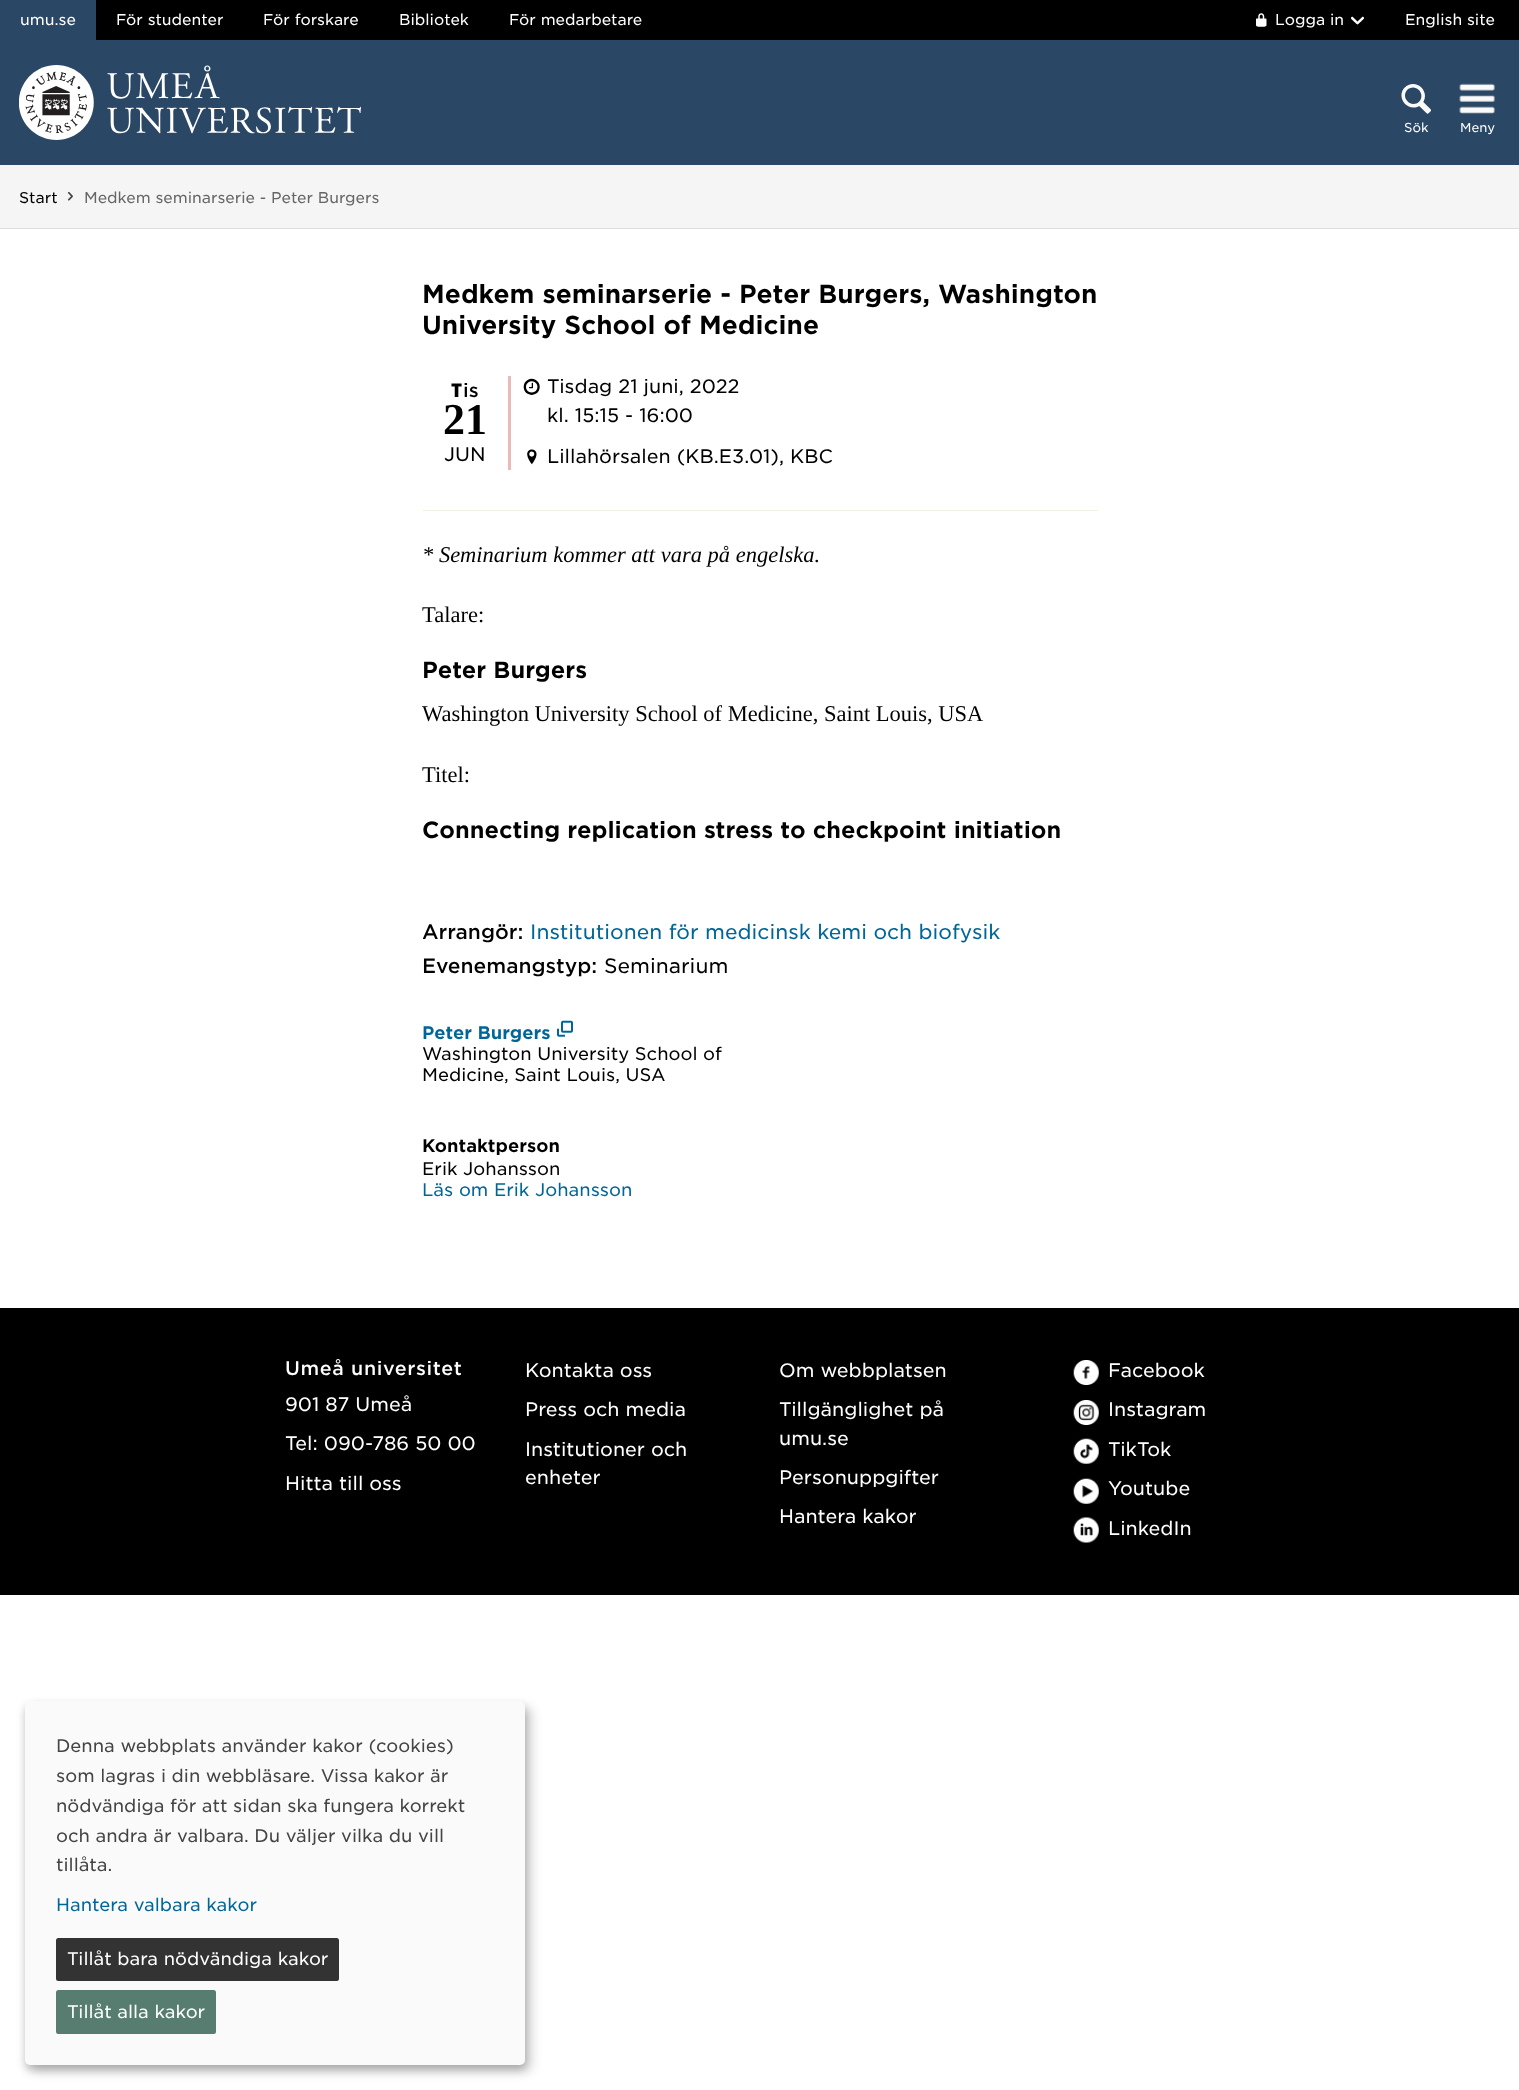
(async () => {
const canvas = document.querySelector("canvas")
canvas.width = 1519
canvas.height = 2090
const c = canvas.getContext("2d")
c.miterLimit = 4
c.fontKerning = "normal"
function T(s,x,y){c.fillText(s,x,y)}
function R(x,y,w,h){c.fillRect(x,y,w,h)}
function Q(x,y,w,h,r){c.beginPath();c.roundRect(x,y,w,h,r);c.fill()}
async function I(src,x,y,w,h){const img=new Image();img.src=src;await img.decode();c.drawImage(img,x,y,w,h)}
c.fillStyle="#fff"
R(0,0,1519,2090)
c.fillStyle="#000"
R(96,0,1423,40)
c.fillStyle="#2a4765"
R(0,0,96,40)
c.font="300 15px 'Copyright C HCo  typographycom'"
c.fillStyle="#fff"
T("umu.se",20,25)
T("För studenter",116,25)
T("För forskare",263,25)
T("Bibliotek",399,25)
T("För medarbetare",509,25)
await I("1.png",1256,13,11,14)
T("Logga in",1275,25)
await I("2.png",1351,16,13,9)
T("English site",1405,25)
c.fillStyle="#2a4765"
R(0,40,1519,125)
await I("3.png",19,65,342,75)
await I("4.png",1401,84,30,30)
c.font="300 12.5px 'Copyright C HCo  typographycom'"
c.fillStyle="#fff"
T("Sök",1404,132)
await I("5.png",1459,83,36,31)
T("Meny",1460,132)
c.fillStyle="#f5f5f5"
R(0,165,1519,63)
c.fillStyle="#ddd"
R(0,228,1519,1)
c.font="300 15px 'Copyright C HCo  typographycom'"
c.fillStyle="#000"
T("Start",19,203)
await I("6.png",67,191,6,10)
c.fillStyle="#666"
T("Medkem seminarserie - Peter Burgers",84,203)
c.font="25px 'Copyright C HCo  typographycom'"
c.fillStyle="#000"
T("Medkem seminarserie - Peter Burgers, Washington",422,303)
T("University School of Medicine",422,334)
c.fillStyle="#eabab9"
R(508,376,3,94)
c.font="900 18.75px Noto Sans"
c.fillStyle="#000"
T("T",451,397)
c.font="300 18.75px 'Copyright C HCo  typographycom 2'"
T("is",463,397)
c.font="bold 44px Liberation Serif"
T("21",443,434)
c.font="300 18.75px 'Copyright C HCo  typographycom'"
T("JUN",444,461)
await I("7.png",523,378,17,17)
T("Tisdag 21 juni, 2022",547,393)
T("kl. 15:15 - 16:00",547,422)
await I("8.png",527,449,10,16)
T("Lillahörsalen (KB.E3.01), KBC",547,463)
c.fillStyle="#f1efe4"
R(423,510,675,1)
c.font="italic 22.5px Liberation Serif"
c.fillStyle="#000"
T("* Seminarium kommer att vara på engelska.",422,562)
c.font="22.5px Liberation Serif"
T("Talare:",422,622)
c.font="22.5px 'Copyright C HCo  typographycom'"
T("Peter Burgers",422,678)
c.font="22.5px Liberation Serif"
T("Washington University School of Medicine, Saint Louis, USA",422,721)
T("Titel:",422,782)
c.font="22.5px 'Copyright C HCo  typographycom'"
T("Connecting replication stress to checkpoint initiation",422,838)
c.font="300 20px 'Copyright C HCo  typographycom 2'"
T("Arrangör:",422,939)
c.font="300 20px 'Copyright C HCo  typographycom'"
c.fillStyle="#069"
T("Institutionen för medicinsk kemi och biofysik",530,939)
c.font="300 20px 'Copyright C HCo  typographycom 2'"
c.fillStyle="#000"
T("Evenemangstyp:",422,973)
c.font="300 20px 'Copyright C HCo  typographycom'"
T("Seminarium",604,973)
c.font="17.5px 'Copyright C HCo  typographycom'"
c.fillStyle="#069"
T("Peter Burgers",422,1039)
await I("9.png",557,1020,16,17)
c.font="300 17.5px 'Copyright C HCo  typographycom'"
c.fillStyle="#000"
T("Washington University School of",422,1060)
T("Medicine, Saint Louis, USA",422,1081)
c.font="17.5px 'Copyright C HCo  typographycom'"
T("Kontaktperson",422,1152)
c.font="300 17.5px 'Copyright C HCo  typographycom'"
T("Erik Johansson",422,1175)
c.fillStyle="#069"
T("Läs om Erik Johansson",422,1196)
c.fillStyle="#000"
R(0,1308,1519,287)
c.letterSpacing="0.6px"
c.font="300 18.75px 'Copyright C HCo  typographycom 2'"
c.fillStyle="#fff"
T("Umeå universitet",285,1375)
c.letterSpacing="0px"
c.font="300 18.75px 'Copyright C HCo  typographycom'"
T("901 87 Umeå",285,1411)
T("Tel: 090-786 50 00",285,1450)
T("Hitta till oss",285,1490)
T("Kontakta oss",525,1377)
T("Press och media",525,1416)
T("Institutioner och",525,1456)
T("enheter",525,1484)
T("Om webbplatsen",779,1377)
T("Tillgänglighet på",779,1416)
T("umu.se",779,1445)
T("Personuppgifter",779,1484)
T("Hantera kakor",779,1523)
await I("10.png",1073,1360,26,25)
T("Facebook",1108,1377)
await I("11.png",1073,1400,26,25)
T("Instagram",1108,1416)
await I("12.png",1073,1438,26,26)
T("TikTok",1108,1456)
await I("13.png",1073,1478,26,26)
T("Youtube",1108,1495)
await I("14.png",1073,1517,26,26)
T("LinkedIn",1108,1535)
c.fillStyle="#00000030"
c.filter="blur(6px)"
c.beginPath()
c.roundRect(31,1708,500,363,5)
c.fill()
c.filter="none"
c.fillStyle="#00000033"
c.filter="blur(4px)"
c.beginPath()
c.roundRect(25,1706,500,364,5)
c.fill()
c.filter="none"
c.fillStyle="#fafafa"
Q(25,1701,500,364,5)
c.font="300 17.5px 'Copyright C HCo  typographycom'"
c.fillStyle="#444"
T("Denna webbplats använder kakor (cookies)",56,1752)
T("som lagras i din webbläsare. Vissa kakor är",56,1782)
T("nödvändiga för att sidan ska fungera korrekt",56,1812)
T("och andra är valbara. Du väljer vilka du vill",56,1842)
T("tillåta.",56,1871)
c.fillStyle="#069"
T("Hantera valbara kakor",56,1911)
c.fillStyle="#333"
Q(56,1938,283,43,2.5)
c.fillStyle="#fff"
T("Tillåt bara nödvändiga kakor",67,1965)
c.fillStyle="#567d70"
Q(56,1990,160,44,2.5)
c.fillStyle="#fff"
T("Tillåt alla kakor",67,2018)
})()
